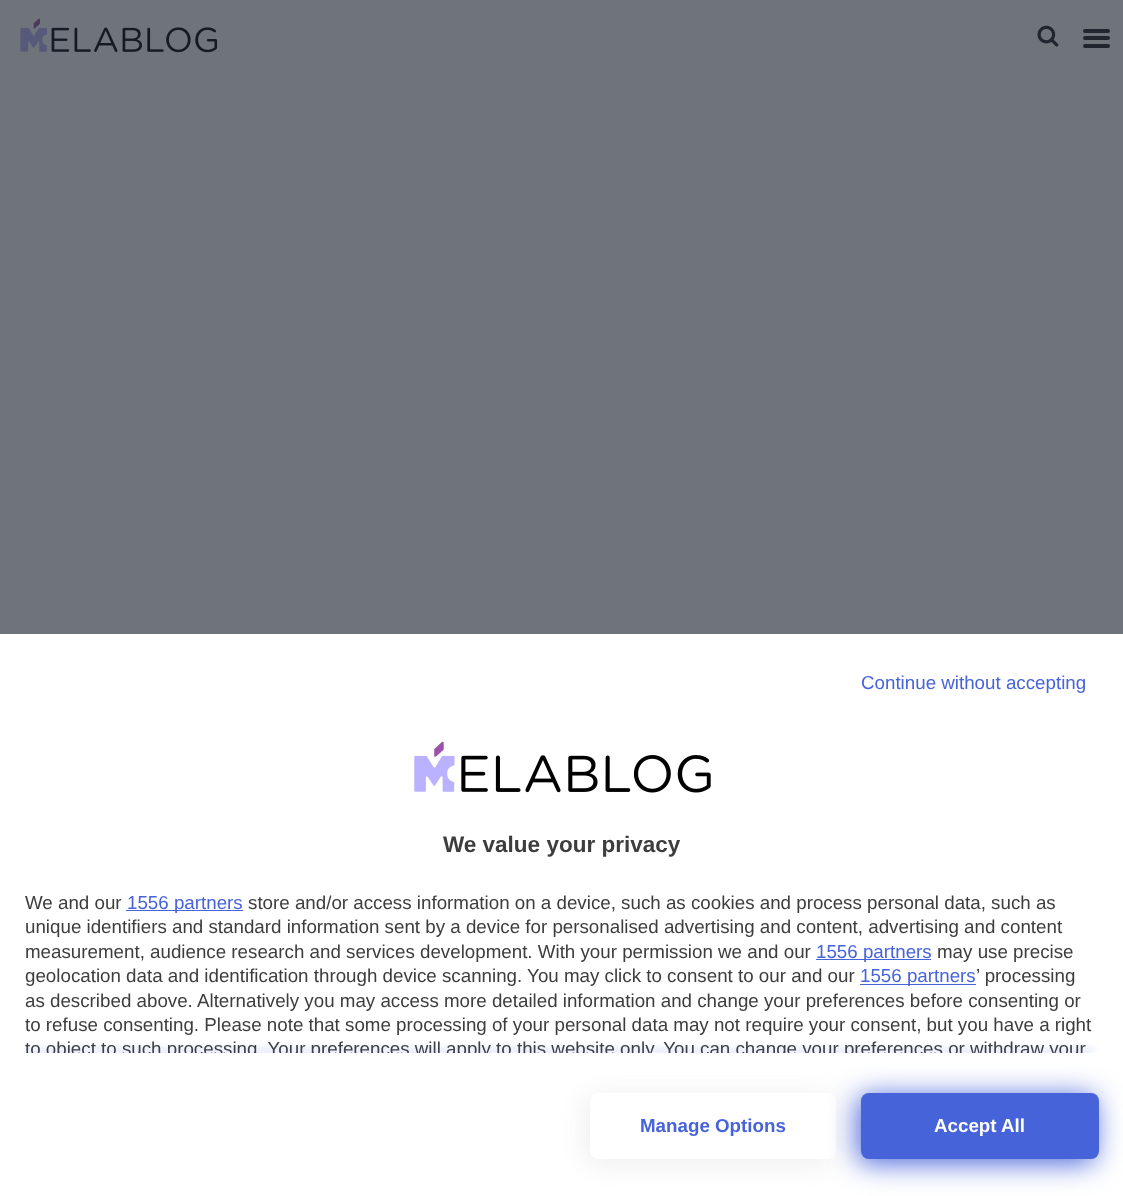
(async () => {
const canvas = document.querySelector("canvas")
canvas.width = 1123
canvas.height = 1196
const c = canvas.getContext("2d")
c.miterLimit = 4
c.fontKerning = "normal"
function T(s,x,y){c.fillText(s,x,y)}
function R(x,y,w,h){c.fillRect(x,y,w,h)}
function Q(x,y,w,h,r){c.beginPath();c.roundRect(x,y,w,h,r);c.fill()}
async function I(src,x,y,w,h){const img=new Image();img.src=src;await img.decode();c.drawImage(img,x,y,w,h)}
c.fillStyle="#6f747b"
R(0,0,1123,1196)
await I("1.png",20,18,198,35)
await I("2.png",1037,25,22,22)
c.fillStyle="#21262e"
Q(1083,36,27,4,2)
Q(1083,29,27,4,2)
Q(1083,44,27,4,2)
c.fillStyle="#fff"
R(0,634,1123,562)
c.font="18.75px Liberation Sans"
c.fillStyle="#4663da"
T("Continue without accepting",861,689)
await I("3.png",414,741,297,52)
c.font="bold 22.5px Liberation Sans"
c.fillStyle="#3d3d3d"
T("We value your privacy",443,852)
c.font="18.75px Liberation Sans"
T("We and our",25,909)
c.fillStyle="#4663da"
R(126,910,117,1)
T("1556 partners",127,909)
c.fillStyle="#3d3d3d"
T("store and/or access information on a device, such as cookies and process personal data, such as",248,909)
T("unique identifiers and standard information sent by a device for personalised advertising and content, advertising and content",25,933)
T("measurement, audience research and services development. With your permission we and our",25,958)
c.fillStyle="#4663da"
R(816,959,115,1)
T("1556 partners",816,958)
c.fillStyle="#3d3d3d"
T("may use precise",937,958)
T("geolocation data and identification through device scanning. You may click to consent to our and our",25,982)
c.fillStyle="#4663da"
R(860,984,116,1)
T("1556 partners",860,982)
c.fillStyle="#3d3d3d"
T("’ processing",976,982)
T("as described above. Alternatively you may access more detailed information and change your preferences before consenting or",25,1007)
T("to refuse consenting. Please note that some processing of your personal data may not require your consent, but you have a right",25,1031)
c.save()
c.beginPath()
c.rect(25,889,1074,164)
c.clip()
T("to object to such processing. Your preferences will apply to this website only. You can change your preferences or withdraw your",25,1055)
c.restore()
c.save()
c.beginPath()
c.rect(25,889,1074,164)
c.clip()
c.fillStyle="#4663da"
c.filter="blur(4.5px)"
c.beginPath()
c.rect(25,1051,1068,1)
c.fill()
c.filter="none"
c.restore()
c.fillStyle="#c4c4c44d"
c.filter="blur(14px)"
c.beginPath()
c.roundRect(586,1096,247,67,8)
c.fill()
c.filter="none"
c.fillStyle="#fff"
Q(590,1093,246,66,8)
c.font="bold 18.75px Liberation Sans"
c.fillStyle="#4663da"
T("Manage Options",640,1132)
c.filter="blur(14px)"
c.beginPath()
c.roundRect(858,1096,237,67,8)
c.fill()
c.filter="none"
Q(861,1093,238,66,8)
c.fillStyle="#fff"
T("Accept All",934,1132)
})()
